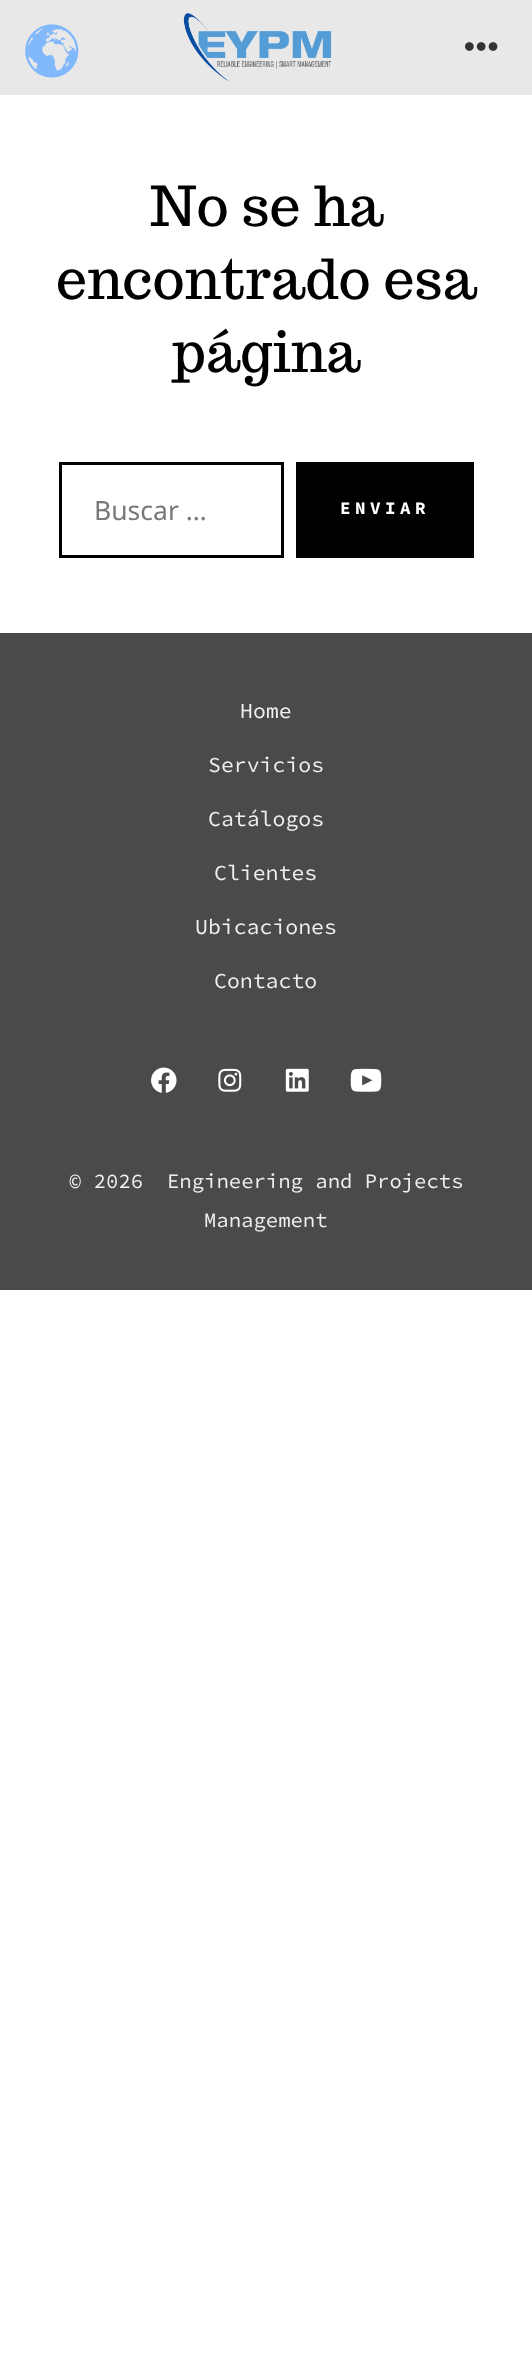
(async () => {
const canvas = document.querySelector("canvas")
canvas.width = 532
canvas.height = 2368
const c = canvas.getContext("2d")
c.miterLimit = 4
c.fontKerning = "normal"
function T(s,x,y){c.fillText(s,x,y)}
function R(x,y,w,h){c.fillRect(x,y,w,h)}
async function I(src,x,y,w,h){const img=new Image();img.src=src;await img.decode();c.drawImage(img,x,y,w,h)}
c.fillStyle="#fff"
R(0,0,532,2368)
c.fillStyle="#e8e8e8"
R(0,0,532,95)
await I("1.png",25,24,54,54)
await I("2.png",183,13,149,69)
await I("3.png",465,42,33,9)
c.font="55.25px Trocchi"
c.fillStyle="#000"
T("No se ha",150,226)
T("encontrado esa",56,299)
T("página",173,372)
c.strokeStyle="#000"
c.lineWidth=3
c.strokeRect(60.5,463.5,222,93)
c.font="26.5px Noto Sans"
c.fillStyle="#787878"
T("Buscar …",94,520)
c.fillStyle="#000"
R(296,462,178,96)
c.letterSpacing="4.5px"
c.font="bold 17.5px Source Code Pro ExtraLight"
c.fillStyle="#fff"
T("ENVIAR",340,514)
c.fillStyle="#4a4a4a"
R(0,633,532,657)
c.letterSpacing="0px"
c.font="21.5px Source Code Pro ExtraLight"
c.fillStyle="#f0f0f0"
T("Home",240,718)
T("Servicios",208,772)
T("Catálogos",208,826)
T("Clientes",214,880)
T("Ubicaciones",195,934)
T("Contacto",214,988)
await I("4.png",151,1067,26,26)
await I("5.png",218,1068,24,24)
await I("6.png",285,1068,24,24)
await I("7.png",350,1068,32,24)
c.font="20.6px Source Code Pro ExtraLight"
T("© 2026",69,1188)
T("Engineering and Projects",167,1188)
T("Management",204,1227)
})()
